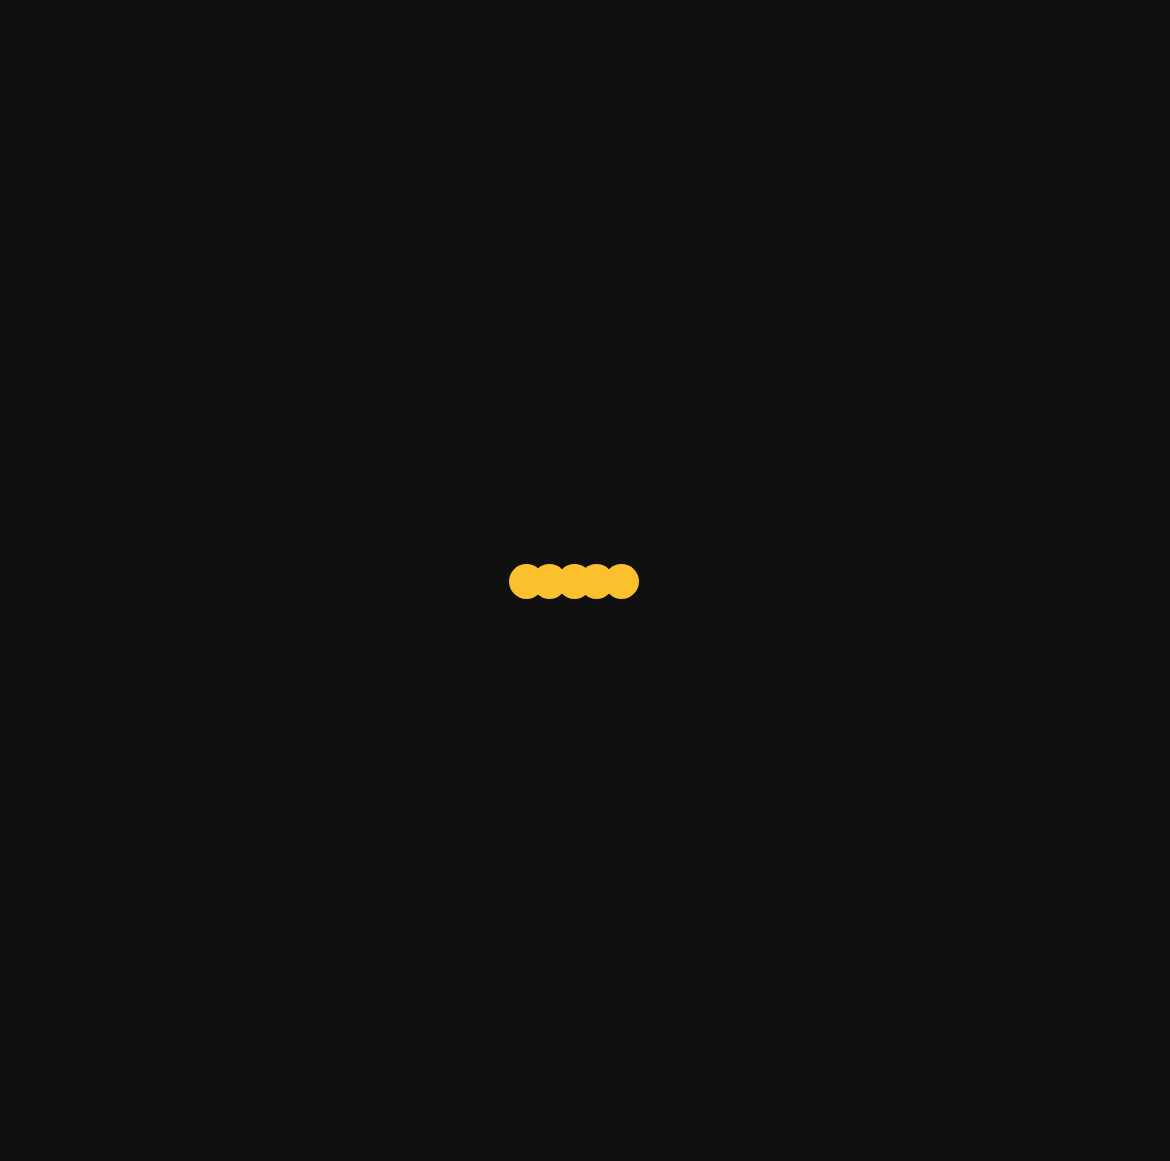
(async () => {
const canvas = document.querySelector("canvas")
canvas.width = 1170
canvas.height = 1161
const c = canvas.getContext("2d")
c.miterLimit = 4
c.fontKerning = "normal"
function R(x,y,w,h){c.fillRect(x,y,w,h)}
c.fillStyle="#101010"
R(0,0,1170,1161)
c.fillStyle="#fbc02d"
c.beginPath()
c.arc(526.5,581.5,17.5,0,7)
c.fill()
c.beginPath()
c.arc(549.5,581.5,17.5,0,7)
c.fill()
c.beginPath()
c.arc(574.5,581.5,17.5,0,7)
c.fill()
c.beginPath()
c.arc(596.5,581.5,17.5,0,7)
c.fill()
c.beginPath()
c.arc(621.5,581.5,17.5,0,7)
c.fill()
})()
